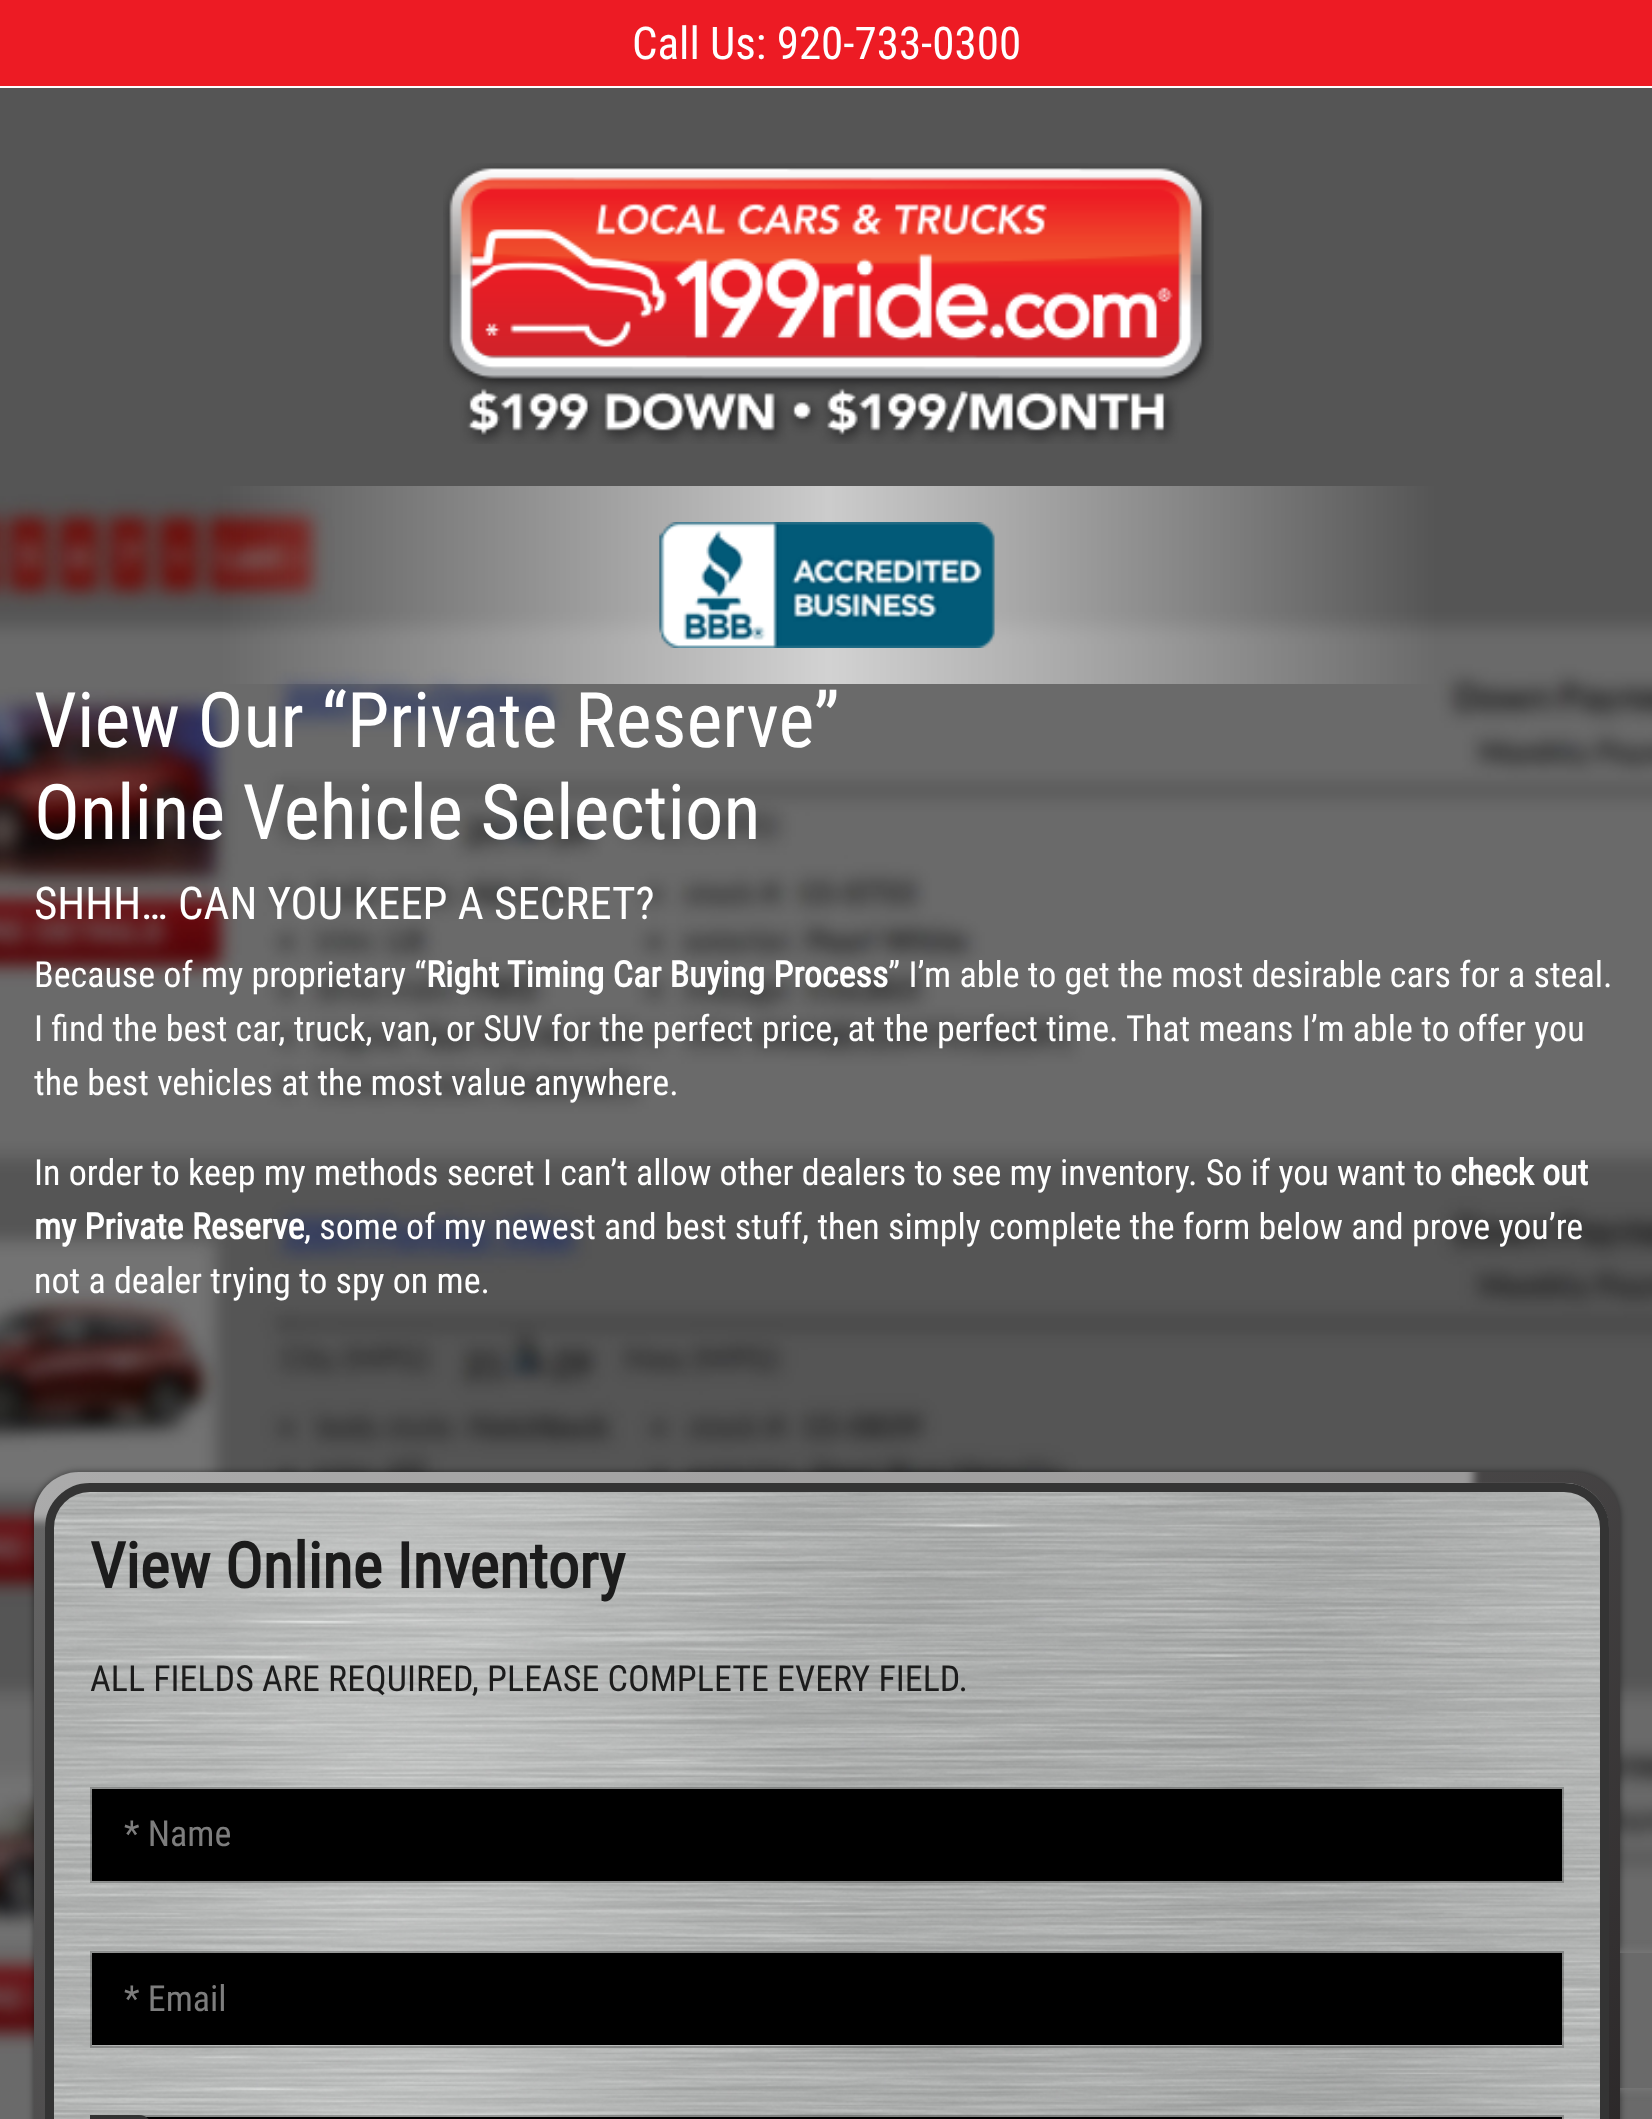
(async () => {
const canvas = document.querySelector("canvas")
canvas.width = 1652
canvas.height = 2119
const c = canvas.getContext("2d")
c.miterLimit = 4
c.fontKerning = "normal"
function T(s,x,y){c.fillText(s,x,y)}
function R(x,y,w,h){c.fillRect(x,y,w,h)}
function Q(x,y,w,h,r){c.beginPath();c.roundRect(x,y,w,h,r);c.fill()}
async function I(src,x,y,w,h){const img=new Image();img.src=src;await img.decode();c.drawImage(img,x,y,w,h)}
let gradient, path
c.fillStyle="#fff"
R(0,0,1652,2119)
c.fillStyle="#ed1b24"
R(0,0,1652,86)
c.font="45px Roboto Condensed"
c.fillStyle="#fff"
T("Call Us: 920-733-0300",632,59)
await I("3.png",0,88,1652,2031)
await I("1.png",443,163,771,281)
await I("2.png",659,522,336,126)
c.font="76.5px Roboto Condensed"
T("View Our “Private Reserve”",34,747)
T("Online Vehicle Selection",34,839)
c.font="45px Roboto Condensed"
T("SHHH… CAN YOU KEEP A SECRET?",34,919)
c.font="36px Roboto Condensed"
T("Because of my proprietary “",34,987)
c.font="bold 36px Roboto Condensed"
T("Right Timing Car Buying Process",426,987)
c.font="36px Roboto Condensed"
T("” I’m able to get the most desirable cars for a steal.",888,987)
T("I find the best car, truck, van, or SUV for the perfect price, at the perfect time. That means I’m able to offer you",34,1041)
T("the best vehicles at the most value anywhere.",34,1095)
T("In order to keep my methods secret I can’t allow other dealers to see my inventory. So if you want to",34,1185)
c.font="bold 36px Roboto Condensed"
T("check out",1450,1185)
T("my Private Reserve",34,1239)
c.font="36px Roboto Condensed"
T(", some of my newest and best stuff, then simply complete the form below and prove you’re",304,1239)
T("not a dealer trying to spy on me.",34,1293)
c.fillStyle="#00000080"
c.filter="blur(3.5px)"
c.beginPath()
c.roundRect(34,1472,1586,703,45)
c.fill()
c.filter="none"
c.save()
path = new Path2D("M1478 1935h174v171h-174zm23 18h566c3 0 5 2 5 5v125c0 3-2 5-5 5h-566c-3 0-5-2-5-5v-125c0-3 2-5 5-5z")
c.clip(path,"evenodd")
c.fillStyle="#808080"
c.filter="blur(5.5px)"
c.beginPath()
c.roundRect(1496,1953,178,135,5)
c.fill()
c.filter="none"
c.restore()
gradient = c.createLinearGradient(404,1248,1250,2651)
gradient.addColorStop(0,"#676767")
gradient.addColorStop(1,"#211d1e")
c.fillStyle = gradient
Q(34,1472,1586,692,45)
c.save()
c.beginPath()
c.roundRect(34,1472,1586,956,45)
c.clip()
c.fillStyle="#ffffff73"
c.filter="blur(4.5px)"
c.beginPath()
c.roundRect(-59,1431,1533,90,45)
c.fill()
c.filter="none"
c.restore()
await I("4.png",45,1482,1564,637)
c.beginPath()
c.roundRect(49.5,1487.5,1555,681,40.5)
c.strokeStyle="#343434"
c.lineWidth=9
c.stroke()
c.font="bold 63px Roboto Condensed"
c.fillStyle="#1c1c1c"
T("View Online Inventory",90,1588)
c.font="36px Roboto Condensed"
T("ALL FIELDS ARE REQUIRED, PLEASE COMPLETE EVERY FIELD.",90,1691)
c.fillStyle="#000"
R(92,1789,1470,92)
c.strokeStyle="#00000040"
c.lineWidth=2
c.strokeRect(91,1788,1472,94)
c.fillStyle="#7d7d7d"
T("* Name",124,1846)
c.fillStyle="#000"
R(92,1953,1470,92)
c.strokeRect(91,1952,1472,95)
c.fillStyle="#7d7d7d"
T("* Email",124,2011)
c.fillStyle="#000"
R(146,2117,1416,2)
c.strokeRect(91,2116,1472,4)
gradient = c.createLinearGradient(122,2115,122,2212)
gradient.addColorStop(0,"#333")
gradient.addColorStop(1,"#111")
c.fillStyle = gradient
path = new Path2D("M90 2115h49c7.5 0 14 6.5 14 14v-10c0 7.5-6.5 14-14 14h-49z")
c.fill(path)
})()
